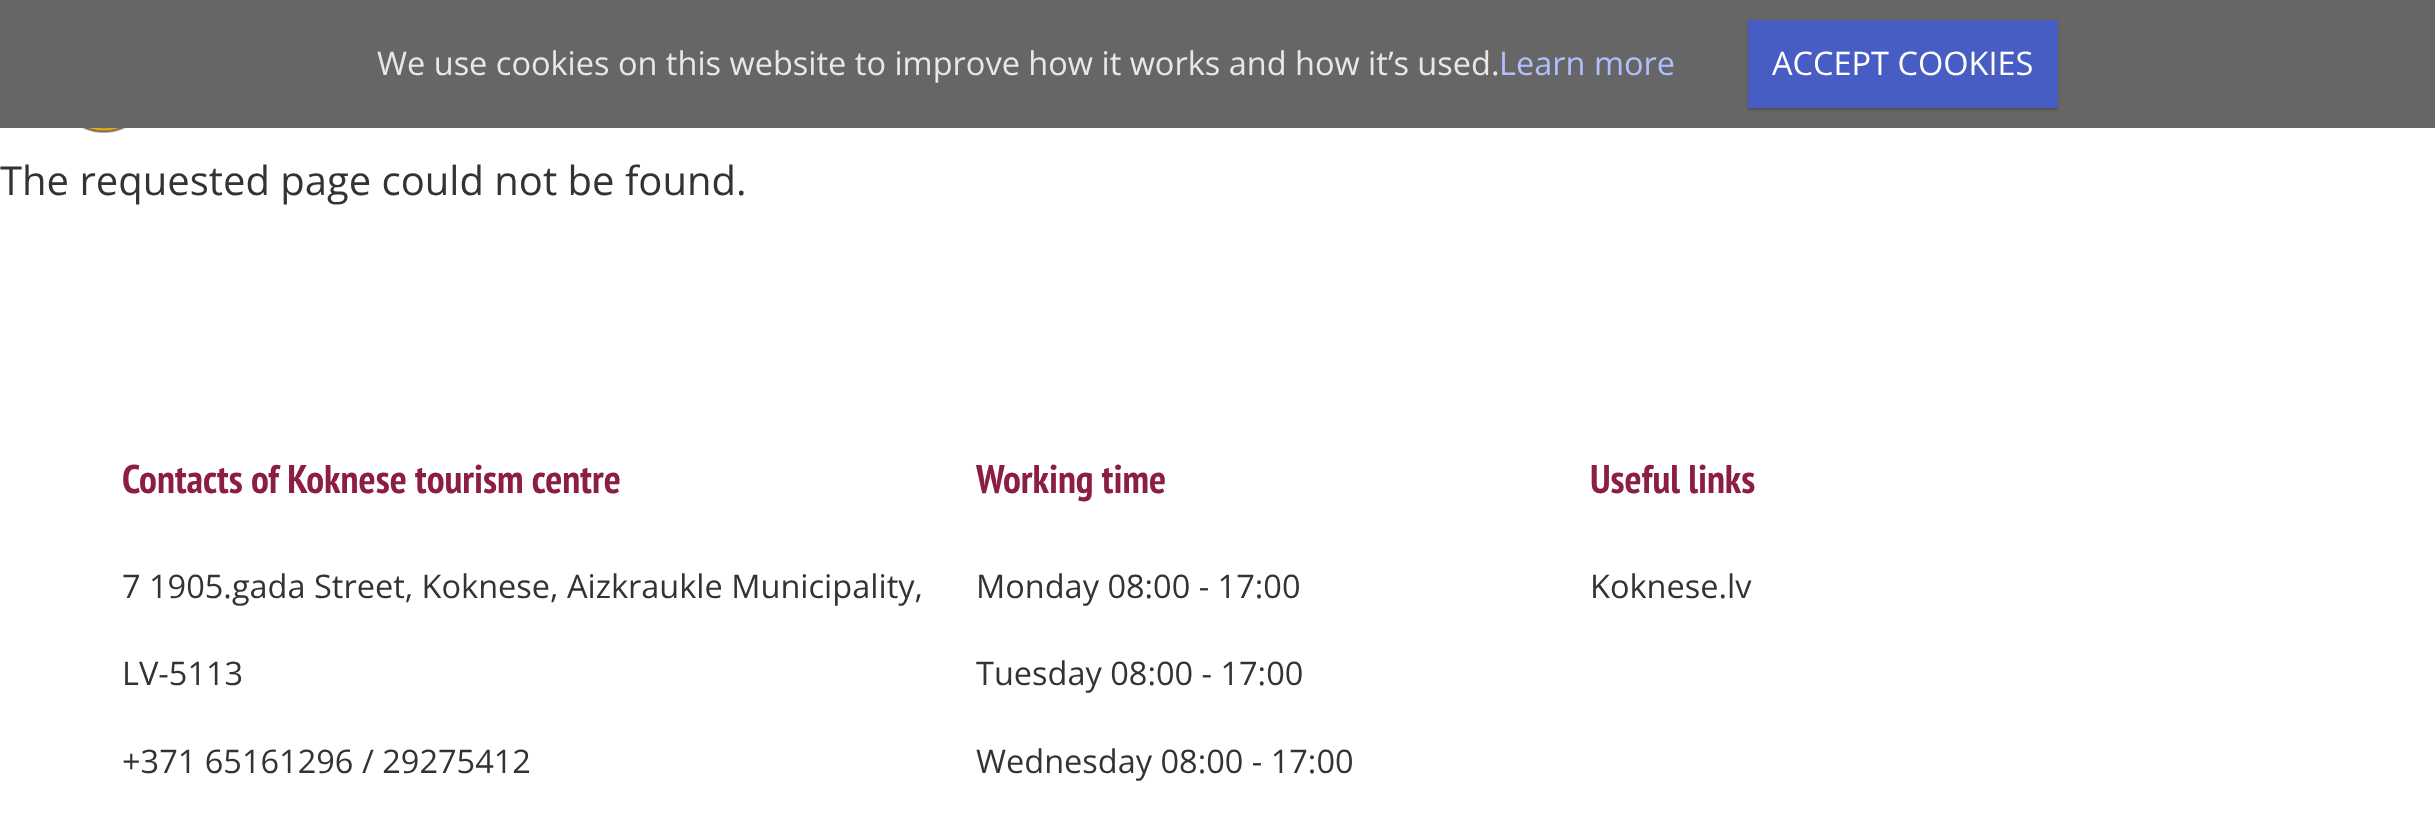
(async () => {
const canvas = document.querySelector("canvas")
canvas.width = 2435
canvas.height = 818
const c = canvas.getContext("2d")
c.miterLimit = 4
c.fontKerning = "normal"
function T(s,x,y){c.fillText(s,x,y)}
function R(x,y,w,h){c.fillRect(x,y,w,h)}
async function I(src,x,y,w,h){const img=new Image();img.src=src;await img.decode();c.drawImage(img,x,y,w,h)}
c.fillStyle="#fff"
R(0,0,2435,818)
c.fillStyle="#666"
R(0,0,2435,128)
c.font="32.5px Open Sans"
c.fillStyle="#e8e8e8"
T("We use cookies on this website to improve how it works and how it’s used.",377,75)
c.fillStyle="#b1bfff"
T("Learn more",1499,75)
c.fillStyle="#00000033"
c.filter="blur(1px)"
c.beginPath()
c.rect(1748,23,310,87)
c.fill()
c.filter="none"
c.fillStyle="#475dc3"
R(1748,20,310,88)
c.fillStyle="#fff"
T("ACCEPT COOKIES",1772,75)
await I("1.png",81,128,45,5)
c.font="40px Open Sans"
c.fillStyle="#333"
T("The requested page could not be found.",0,195)
c.font="bold 40px PT Sans Narrow"
c.fillStyle="#8b1e41"
T("Contacts of Koknese tourism centre",122,493)
c.font="32.5px Open Sans"
c.fillStyle="#333"
T("7 1905.gada Street, Koknese, Aizkraukle Municipality,",122,598)
T("LV-5113",122,685)
T("+371 65161296 / 29275412",122,773)
c.font="bold 40px PT Sans Narrow"
c.fillStyle="#8b1e41"
T("Working time",976,493)
c.font="32.5px Open Sans"
c.fillStyle="#333"
T("Monday 08:00 - 17:00",976,598)
T("Tuesday 08:00 - 17:00",976,685)
T("Wednesday 08:00 - 17:00",976,773)
c.font="bold 40px PT Sans Narrow"
c.fillStyle="#8b1e41"
T("Useful links",1590,493)
c.font="32.5px Open Sans"
c.fillStyle="#333"
T("Koknese.lv",1590,598)
})()
